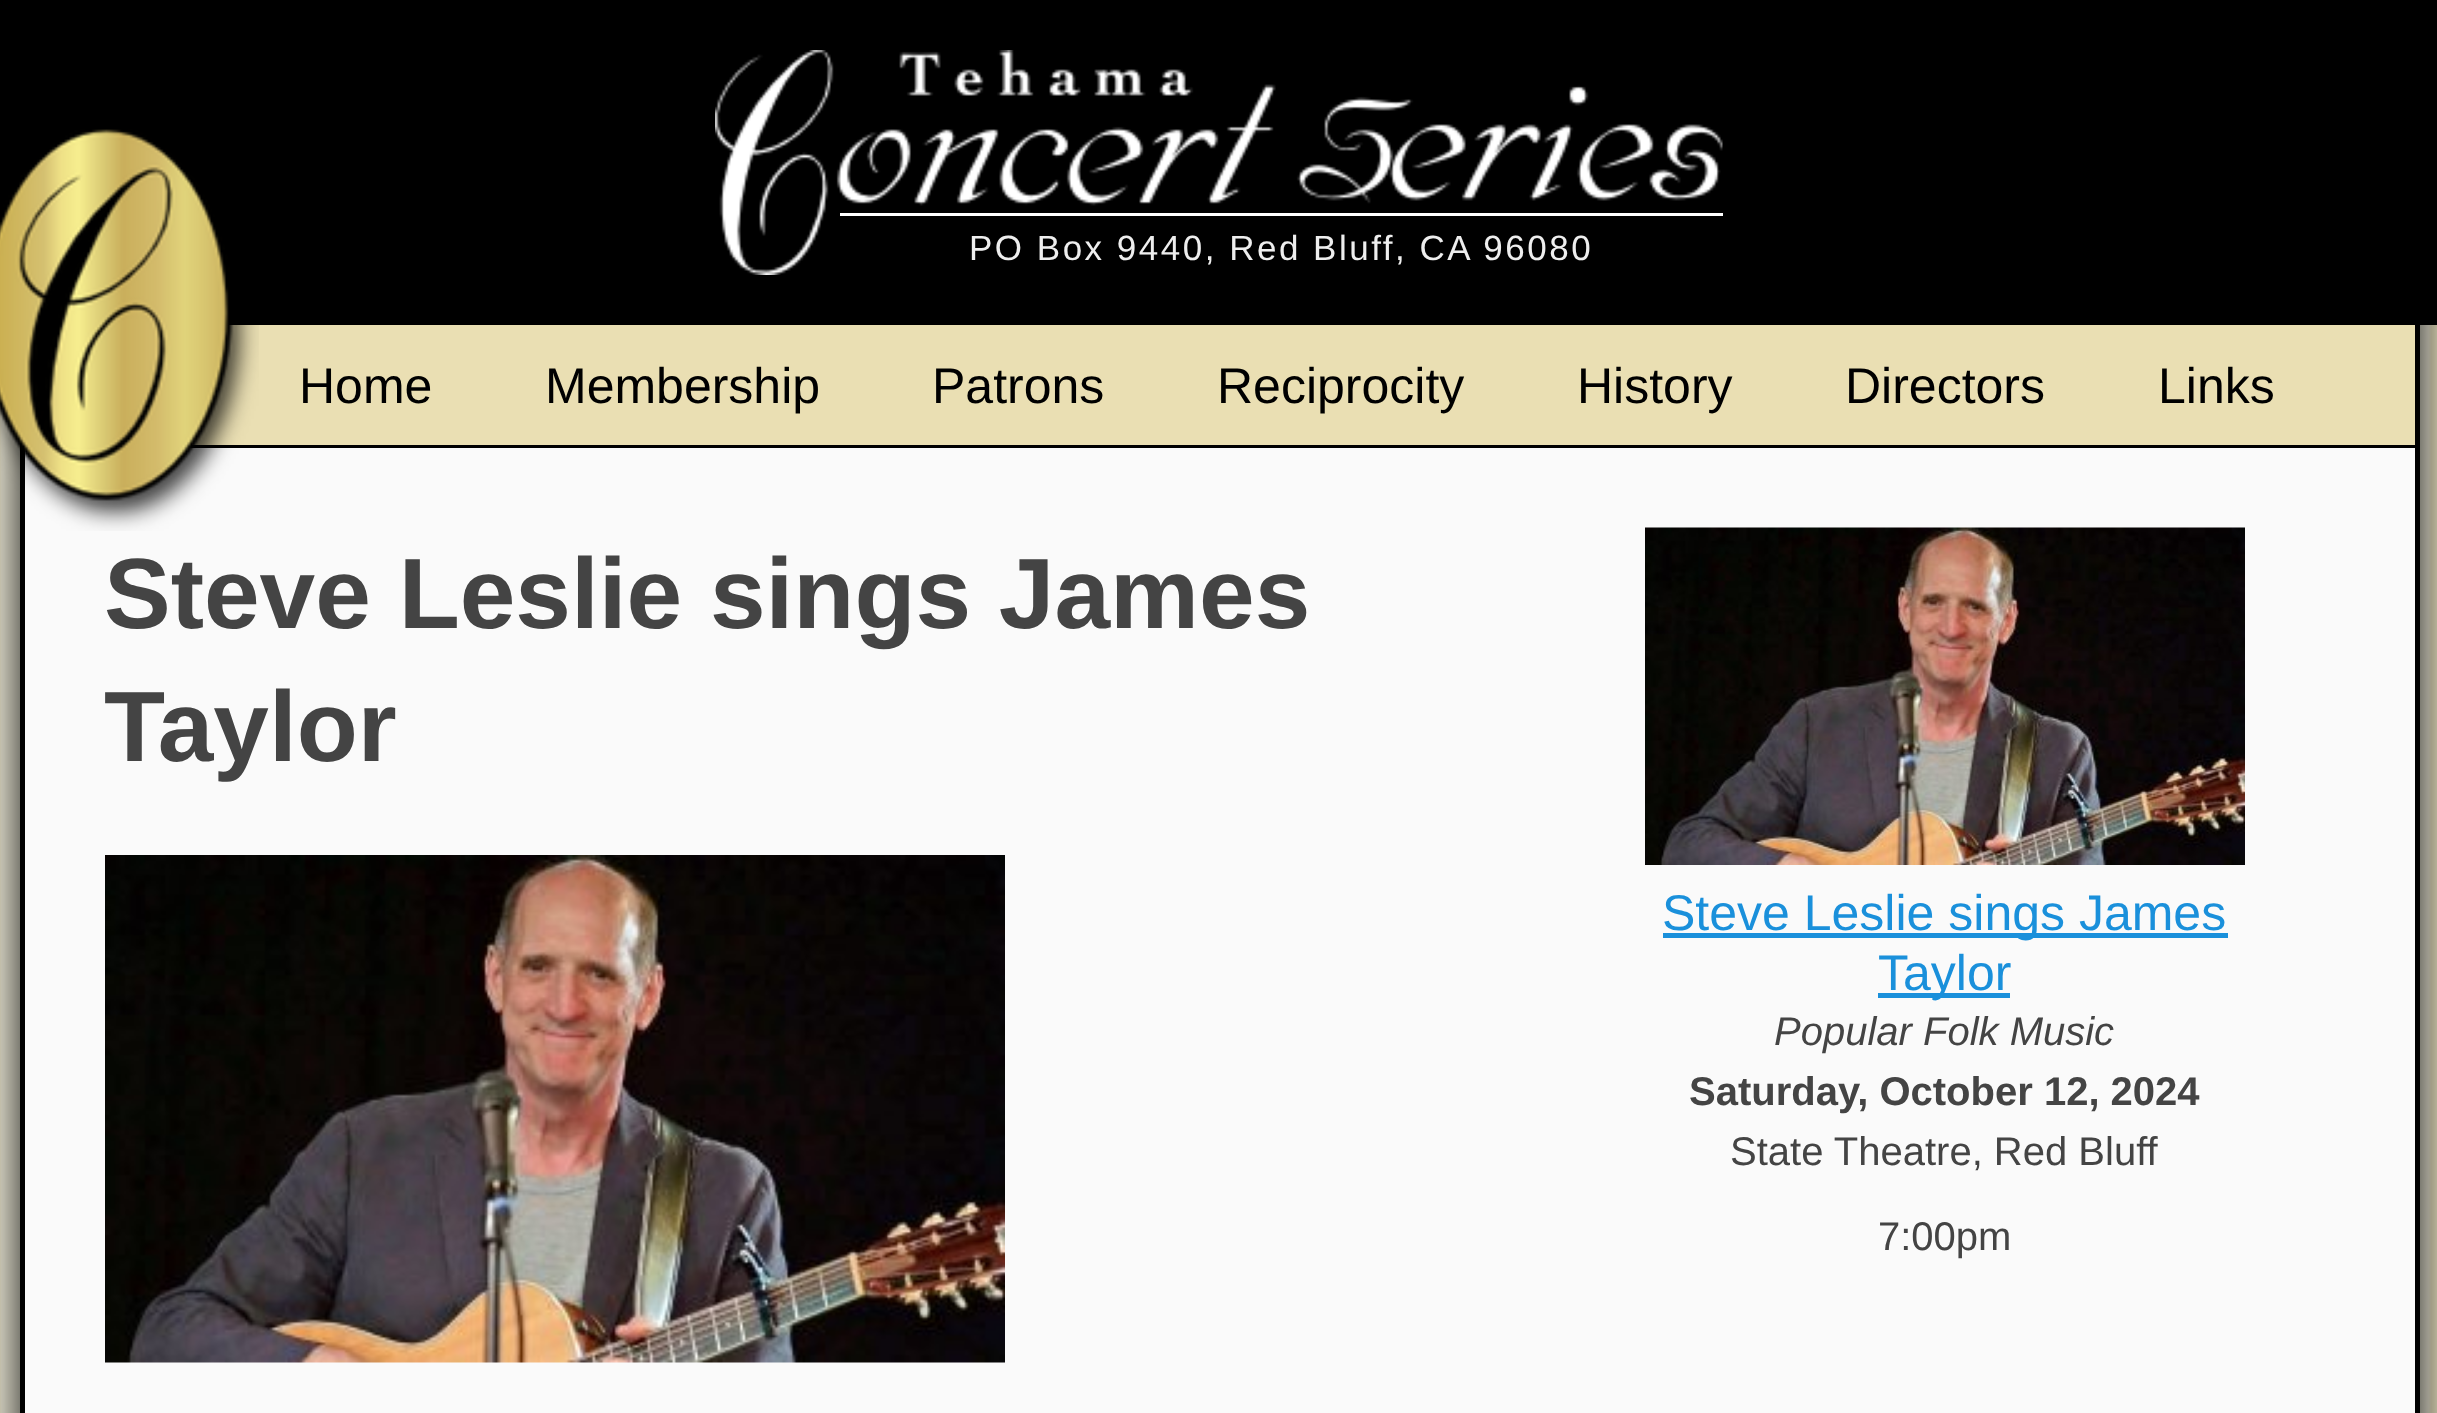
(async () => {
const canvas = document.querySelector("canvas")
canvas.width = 2437
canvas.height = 1413
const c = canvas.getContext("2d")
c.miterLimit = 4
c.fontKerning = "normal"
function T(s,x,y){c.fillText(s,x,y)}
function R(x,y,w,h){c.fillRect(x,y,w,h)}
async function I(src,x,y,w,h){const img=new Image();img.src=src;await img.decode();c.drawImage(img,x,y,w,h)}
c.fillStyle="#fff"
R(0,0,2437,1413)
await I("1.png",0,325,2437,1088)
c.fillStyle="#000"
R(0,0,2437,325)
c.filter="blur(25px)"
c.beginPath()
c.rect(20,0,2400,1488)
c.fill()
c.filter="none"
c.fillStyle="#fafafa"
R(25,448,2390,965)
c.fillStyle="#000"
R(2415,325,5,1088)
R(20,325,5,1088)
c.fillStyle="#eadfb3"
R(192,325,2223,120)
await I("2.png",0,129,259,402)
await I("3.png",715,50,1008,225)
c.fillStyle="#fff"
R(840,213,883,3)
c.letterSpacing="2.5px"
c.font="35px Liberation Sans"
c.fillStyle="#eee"
T("PO Box 9440, Red Bluff, CA 96080",969,260)
c.fillStyle="#000"
R(2362,445,53,3)
c.letterSpacing="0px"
c.font="50px Liberation Sans"
T("Home",299,403)
T("Membership",545,403)
T("Patrons",932,403)
T("Reciprocity",1217,403)
T("History",1577,403)
T("Directors",1845,403)
T("Links",2158,403)
c.font="bold 100px Liberation Sans"
c.fillStyle="#444"
T("Steve Leslie sings James",104,628)
T("Taylor",104,761)
await I("4.png",105,855,900,508)
await I("5.png",1645,527,600,338)
c.fillStyle="#1a90db"
R(1663,933,565,5)
c.font="50px Liberation Sans"
T("Steve Leslie sings James",1662,930)
R(1878,993,132,5)
T("Taylor",1878,990)
c.font="italic 40px Liberation Sans"
c.fillStyle="#444"
T("Popular Folk Music",1774,1045)
c.font="bold 40px Liberation Sans"
T("Saturday, October 12, 2024",1689,1105)
c.font="40px Liberation Sans"
T("State Theatre, Red Bluff",1730,1165)
T("7:00pm",1878,1250)
})()
